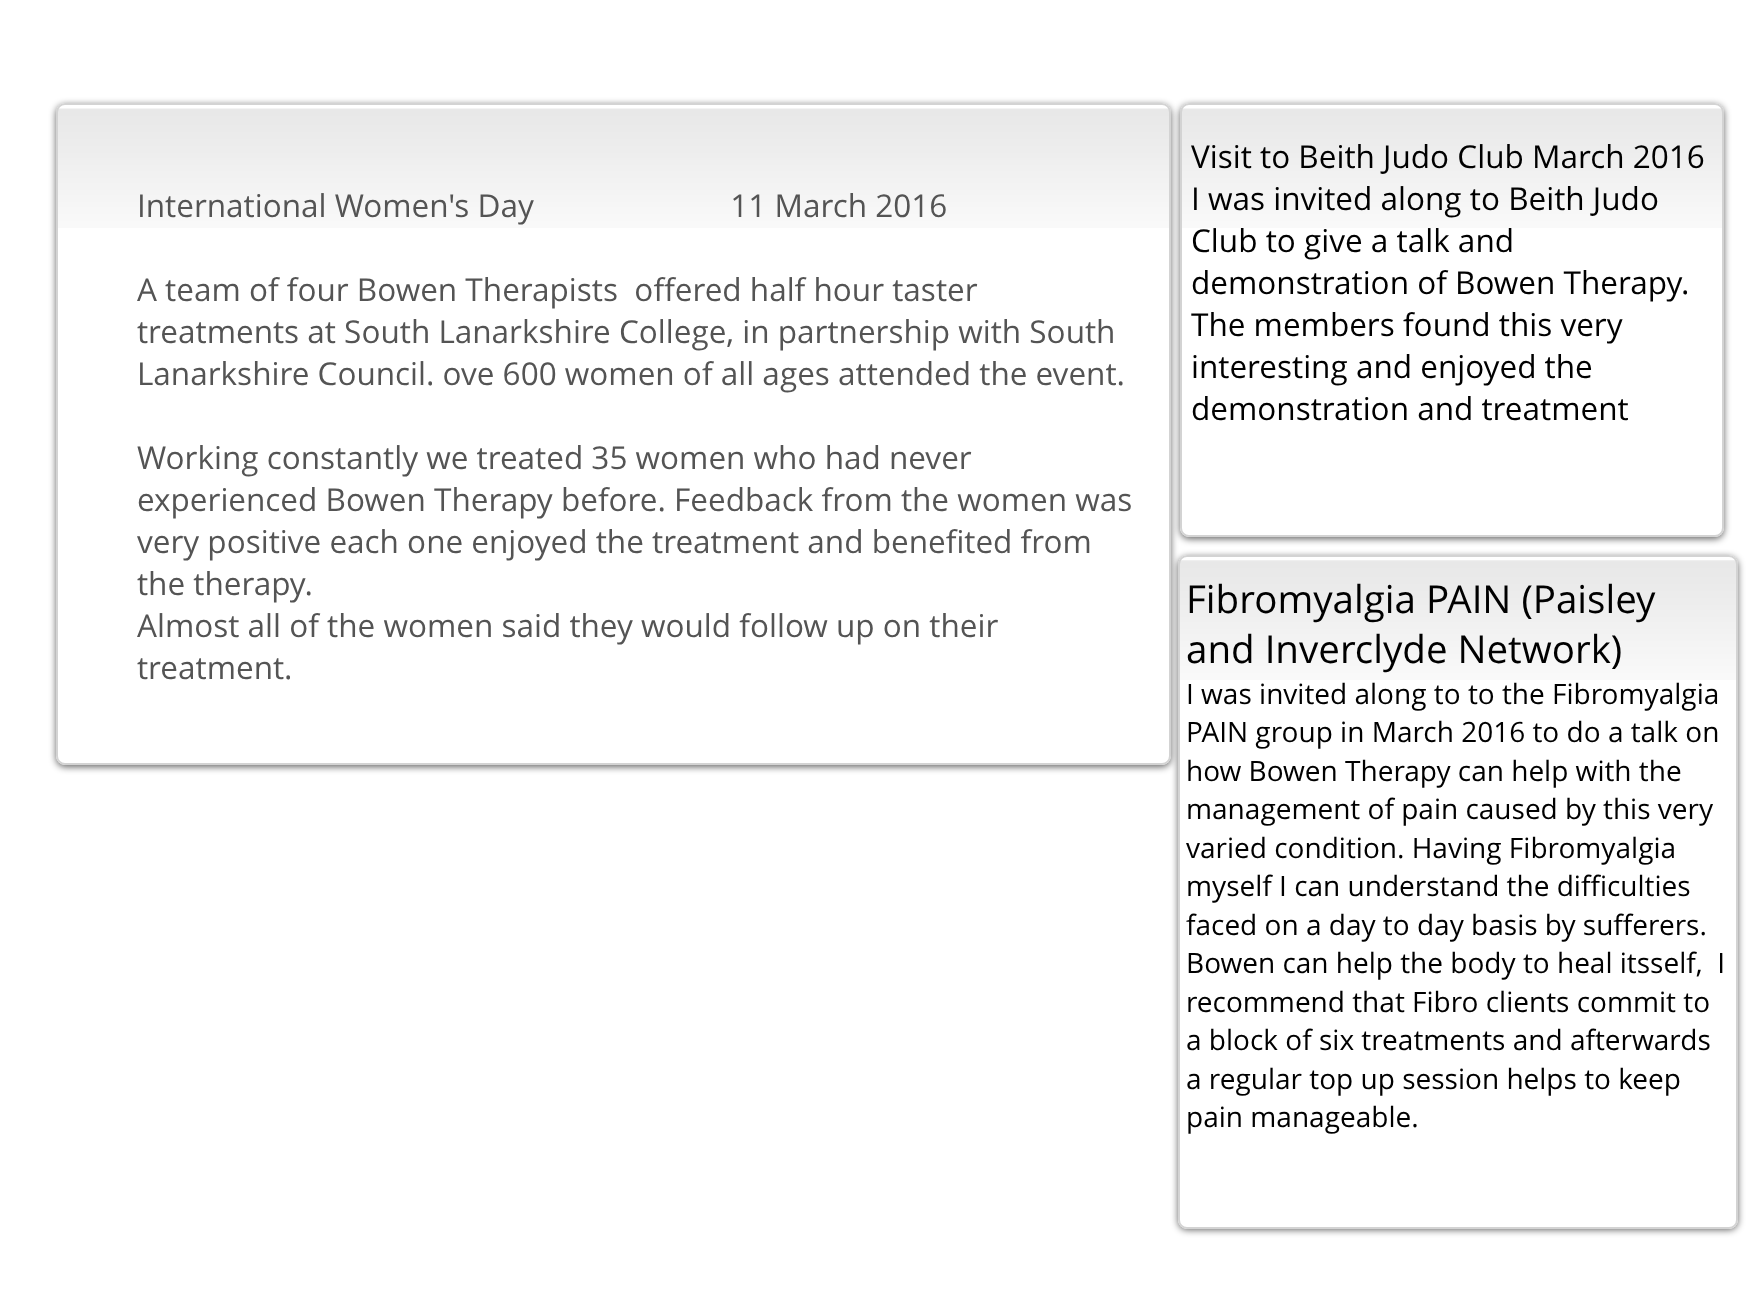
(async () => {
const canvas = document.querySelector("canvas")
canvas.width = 1761
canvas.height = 1294
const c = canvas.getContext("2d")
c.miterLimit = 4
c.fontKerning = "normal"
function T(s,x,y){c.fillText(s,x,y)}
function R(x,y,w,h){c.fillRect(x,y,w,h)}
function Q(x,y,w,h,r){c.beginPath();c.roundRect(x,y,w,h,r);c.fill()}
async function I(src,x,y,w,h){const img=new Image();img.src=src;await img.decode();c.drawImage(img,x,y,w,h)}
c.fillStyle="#fff"
R(0,0,1761,1294)
c.fillStyle="#00000099"
c.filter="blur(3.5px)"
c.beginPath()
c.roundRect(56,105,1115,662,9)
c.fill()
c.filter="none"
c.fillStyle="#fff"
Q(56,103,1115,662,9)
await I("1.png",56,108,1115,120)
c.beginPath()
c.roundRect(57,104,1113,660,8)
c.strokeStyle="#d3d3d3"
c.lineWidth=2
c.stroke()
c.fillStyle="#00000099"
c.filter="blur(3.5px)"
c.beginPath()
c.roundRect(1180,105,544,434,9)
c.fill()
c.filter="none"
c.fillStyle="#fff"
Q(1180,103,544,434,9)
await I("2.png",1180,108,544,120)
c.beginPath()
c.roundRect(1181,104,542,432,8)
c.stroke()
c.font="31.5px Open Sans"
c.fillStyle="#000"
T("Visit to Beith Judo Club March 2016",1191,168)
T("I was invited along to Beith Judo",1191,210)
T("Club to give a talk and",1191,252)
T("demonstration of Bowen Therapy.",1191,294)
T("The members found this very",1191,336)
T("interesting and enjoyed the",1191,378)
T("demonstration and treatment",1191,420)
c.fillStyle="#545454"
T("International Women's Day                        11 March 2016",137,217)
T("A team of four Bowen Therapists  offered half hour taster",137,301)
T("treatments at South Lanarkshire College, in partnership with South",137,343)
T("Lanarkshire Council. ove 600 women of all ages attended the event.",137,385)
T("Working constantly we treated 35 women who had never",137,469)
T("experienced Bowen Therapy before. Feedback from the women was",137,511)
T("very positive each one enjoyed the treatment and benefited from",137,553)
T("the therapy.",137,595)
T("Almost all of the women said they would follow up on their",137,637)
T("treatment.",137,679)
c.fillStyle="#00000099"
c.filter="blur(3.5px)"
c.beginPath()
c.roundRect(1178,557,560,673,9)
c.fill()
c.filter="none"
c.fillStyle="#fff"
Q(1178,555,560,674,9)
await I("3.png",1178,560,560,120)
c.beginPath()
c.roundRect(1179,556,558,672,8)
c.stroke()
c.font="38.5px Open Sans"
c.fillStyle="#000"
T("Fibromyalgia PAIN (Paisley",1186,613)
T("and Inverclyde Network)",1186,663)
c.font="28px Open Sans"
T("I was invited along to to the Fibromyalgia",1186,704)
T("PAIN group in March 2016 to do a talk on",1186,742)
T("how Bowen Therapy can help with the",1186,781)
T("management of pain caused by this very",1186,819)
T("varied condition. Having Fibromyalgia",1186,858)
T("myself I can understand the difficulties",1186,896)
T("faced on a day to day basis by sufferers.",1186,935)
T("Bowen can help the body to heal itsself,  I",1186,973)
T("recommend that Fibro clients commit to",1186,1012)
T("a block of six treatments and afterwards",1186,1050)
T("a regular top up session helps to keep",1186,1089)
T("pain manageable.",1186,1127)
})()
